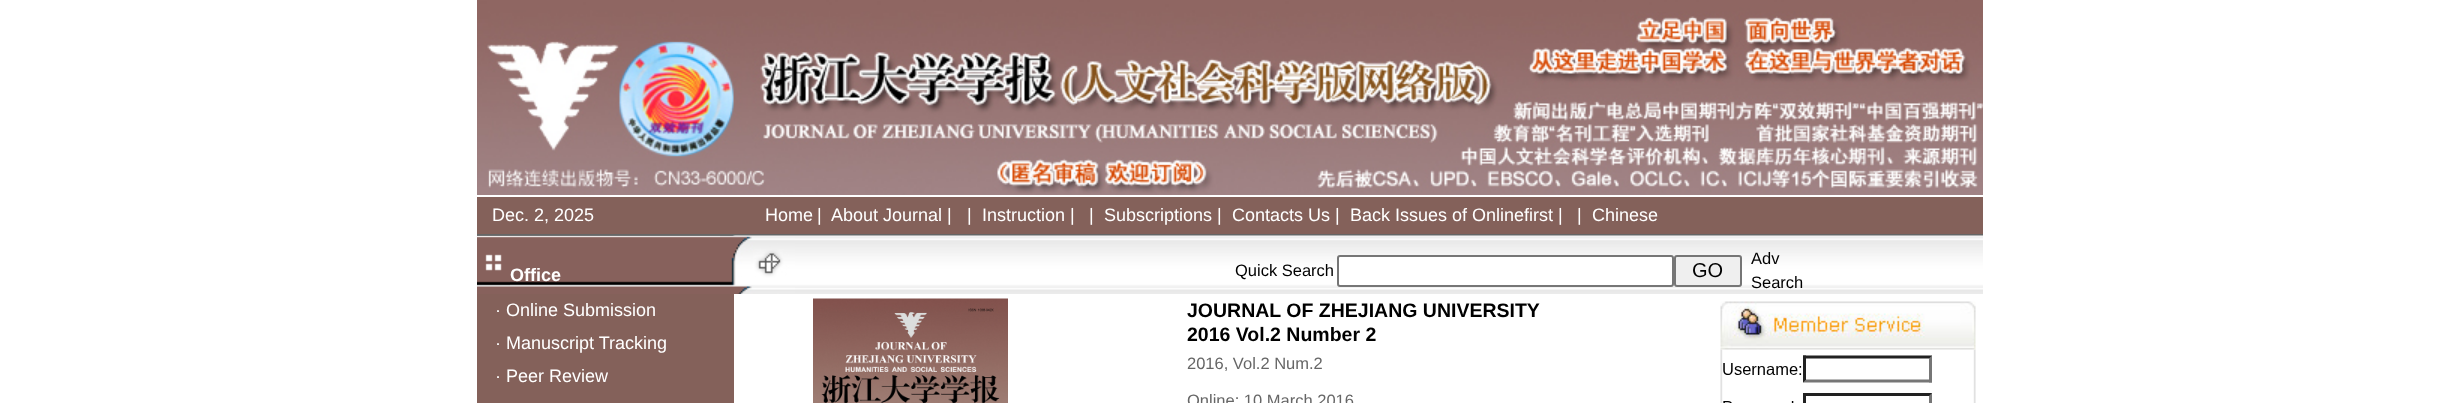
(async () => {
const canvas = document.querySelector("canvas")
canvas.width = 2460
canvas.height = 403
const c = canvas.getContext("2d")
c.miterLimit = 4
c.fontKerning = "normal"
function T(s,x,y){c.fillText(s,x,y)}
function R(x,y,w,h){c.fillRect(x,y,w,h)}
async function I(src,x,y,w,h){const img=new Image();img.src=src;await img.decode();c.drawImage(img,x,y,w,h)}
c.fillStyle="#fff"
R(0,0,2460,403)
await I("1.png",477,0,1506,195)
c.fillStyle="#84615a"
R(477,197,1506,37)
c.font="18px Liberation Sans"
c.fillStyle="#fff"
T("Dec. 2, 2025",492,221)
T("Home",765,221)
T("|",817,221)
T("About Journal |",831,221)
T("|",967,221)
T("Instruction |",982,221)
T("|",1089,221)
T("Subscriptions |",1104,221)
T("Contacts Us |",1232,221)
T("Back Issues of Onlinefirst |",1350,221)
T("|",1577,221)
T("Chinese",1592,221)
c.fillStyle="#666"
R(477,234,1506,2)
await I("2.png",477,235,33,59)
await I("3.png",510,235,210,59)
c.font="bold 18px Liberation Sans"
c.fillStyle="#fff"
T("Office",510,281)
await I("4.png",720,235,75,59)
await I("5.png",795,235,1188,59)
c.font="16.5px Liberation Sans"
c.fillStyle="#000"
T("Quick Search",1235,276)
c.fillStyle="#fff"
c.beginPath()
c.roundRect(1338,256,335,30,2)
c.fill()
c.strokeStyle="#767676"
c.lineWidth=2
c.stroke()
c.fillStyle="#efefef"
c.beginPath()
c.roundRect(1675,256,66,30,2)
c.fill()
c.stroke()
c.font="20px Liberation Sans"
c.fillStyle="#000"
T("GO",1692,277)
c.font="16.5px Liberation Sans"
T("Adv",1751,264)
T("Search",1751,288)
c.fillStyle="#84615a"
R(477,294,257,109)
c.font="18px Liberation Sans"
c.fillStyle="#fff"
T("· Online Submission",495,316)
T("· Manuscript Tracking",495,349)
T("· Peer Review",495,382)
await I("6.png",813,298,195,105)
c.font="bold 19.5px Liberation Sans"
c.fillStyle="#000"
T("JOURNAL OF ZHEJIANG UNIVERSITY",1187,317)
T("2016 Vol.2 Number 2",1187,341)
c.font="16.5px Liberation Sans"
c.fillStyle="#666"
T("2016, Vol.2 Num.2",1187,369)
T("Online: 10 March 2016",1187,406)
await I("8.png",1720,349,256,54)
await I("7.png",1720,301,256,49)
await I("9.png",1723,355,209,48)
})()
